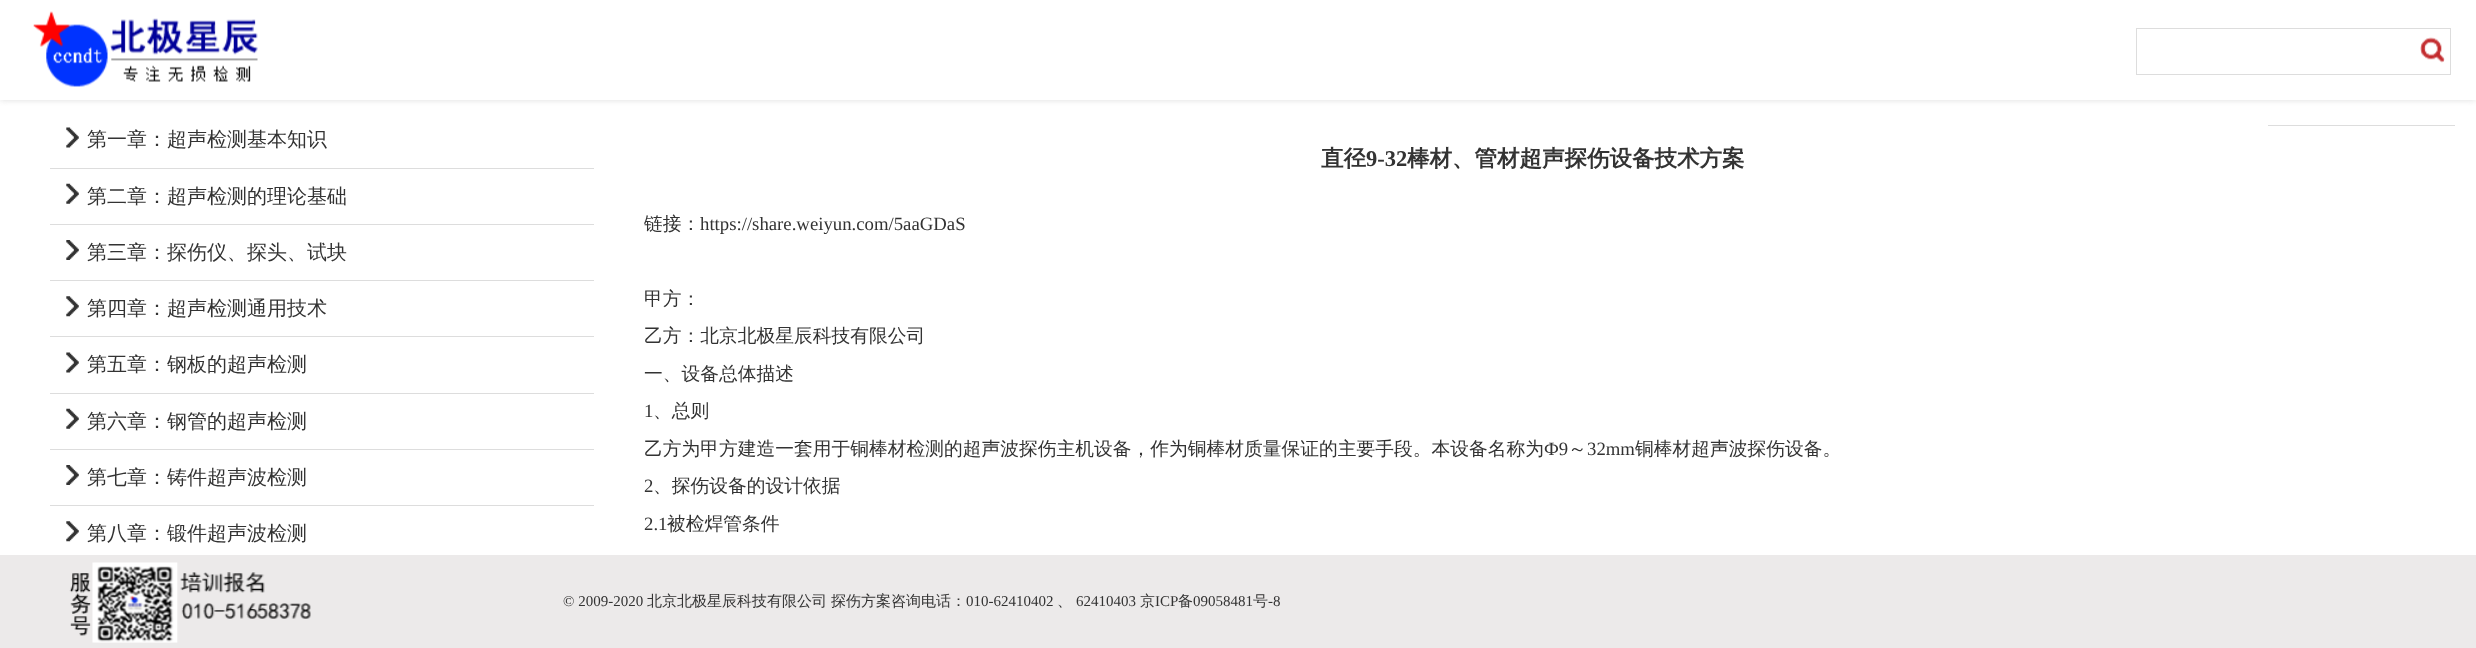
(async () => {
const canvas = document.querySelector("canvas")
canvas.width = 2476
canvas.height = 648
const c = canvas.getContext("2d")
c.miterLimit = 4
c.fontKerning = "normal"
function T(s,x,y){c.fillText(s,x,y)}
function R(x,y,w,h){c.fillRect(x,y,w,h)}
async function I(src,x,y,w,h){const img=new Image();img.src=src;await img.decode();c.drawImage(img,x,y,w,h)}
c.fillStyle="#fff"
R(0,0,2476,648)
c.save()
c.beginPath()
c.rect(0,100,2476,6)
c.clip()
c.fillStyle="#ddd"
c.filter="blur(3px)"
c.beginPath()
c.rect(0,0,2476,100)
c.fill()
c.filter="none"
c.restore()
await I("1.png",33,11,225,76)
c.strokeStyle="#ddd"
c.strokeRect(2136.5,28.5,314,46)
await I("2.png",2420,37,25,26)
c.fillStyle="#ddd"
R(50,168,544,1)
await I("3.png",66,127,13,21)
c.font="500 20px WenQuanYi Zen Hei"
c.fillStyle="#333"
T("第一章：超声检测基本知识",87,146)
c.fillStyle="#ddd"
R(50,224,544,1)
await I("4.png",66,183,13,21)
c.fillStyle="#333"
T("第二章：超声检测的理论基础",87,203)
c.fillStyle="#ddd"
R(50,280,544,1)
await I("5.png",66,240,13,20)
c.fillStyle="#333"
T("第三章：探伤仪、探头、试块",87,259)
c.fillStyle="#ddd"
R(50,336,544,1)
await I("6.png",66,296,13,21)
c.fillStyle="#333"
T("第四章：超声检测通用技术",87,315)
c.fillStyle="#ddd"
R(50,393,544,1)
await I("3.png",66,352,13,21)
c.fillStyle="#333"
T("第五章：钢板的超声检测",87,371)
c.fillStyle="#ddd"
R(50,449,544,1)
await I("4.png",66,408,13,21)
c.fillStyle="#333"
T("第六章：钢管的超声检测",87,428)
c.fillStyle="#ddd"
R(50,505,544,1)
await I("5.png",66,465,13,20)
c.fillStyle="#333"
T("第七章：铸件超声波检测",87,484)
await I("6.png",66,521,13,21)
T("第八章：锻件超声波检测",87,540)
c.fillStyle="#ddd"
R(2268,125,187,1)
c.font="bold 22.5px WenQuanYi Zen Hei"
c.fillStyle="#333"
T("直径",1321,166)
c.font="bold 22.5px Liberation Serif"
T("9-32",1366,166)
c.font="bold 22.5px WenQuanYi Zen Hei"
T("棒材、管材超声探伤设备技术方案",1407,166)
c.font="500 18.75px WenQuanYi Zen Hei"
T("链接：",644,230)
c.font="18.75px Liberation Serif"
T("https://share.weiyun.com/5aaGDaS",700,230)
c.font="500 18.75px WenQuanYi Zen Hei"
T("甲方：",644,305)
T("乙方：北京北极星辰科技有限公司",644,342)
T("一、设备总体描述",644,380)
c.font="18.75px Liberation Serif"
T("1",644,417)
c.font="500 18.75px WenQuanYi Zen Hei"
T("、总则",653,417)
T("乙方为甲方建造一套用于铜棒材检测的超声波探伤主机设备，作为铜棒材质量保证的主要手段。本设备名称为",644,455)
c.font="18.75px Liberation Serif"
T("Ф9",1544,455)
c.font="500 18.75px WenQuanYi Zen Hei"
T("～",1568,455)
c.font="18.75px Liberation Serif"
T("32mm",1587,455)
c.font="500 18.75px WenQuanYi Zen Hei"
T("铜棒材超声波探伤设备。",1635,455)
c.font="18.75px Liberation Serif"
T("2",644,492)
c.font="500 18.75px WenQuanYi Zen Hei"
T("、探伤设备的设计依据",653,492)
c.font="18.75px Liberation Serif"
T("2.1",644,530)
c.font="500 18.75px WenQuanYi Zen Hei"
T("被检焊管条件",667,530)
c.fillStyle="#eceaea"
R(0,555,2476,93)
await I("7.png",69,562,242,81)
c.font="15px Liberation Serif"
c.fillStyle="#333"
T("© 2009-2020",563,606)
c.font="500 15px WenQuanYi Zen Hei"
T("北京北极星辰科技有限公司",647,606)
T("探伤方案咨询电话：",831,606)
c.font="15px Liberation Serif"
T("010-62410402",966,606)
c.font="500 15px WenQuanYi Zen Hei"
T("、",1057,606)
c.font="15px Liberation Serif"
T("62410403",1076,606)
c.font="500 15px WenQuanYi Zen Hei"
T("京",1140,606)
c.font="15px Liberation Serif"
T("ICP",1155,606)
c.font="500 15px WenQuanYi Zen Hei"
T("备",1178,606)
c.font="15px Liberation Serif"
T("09058481",1193,606)
c.font="500 15px WenQuanYi Zen Hei"
T("号",1253,606)
c.font="15px Liberation Serif"
T("-8",1268,606)
})()
